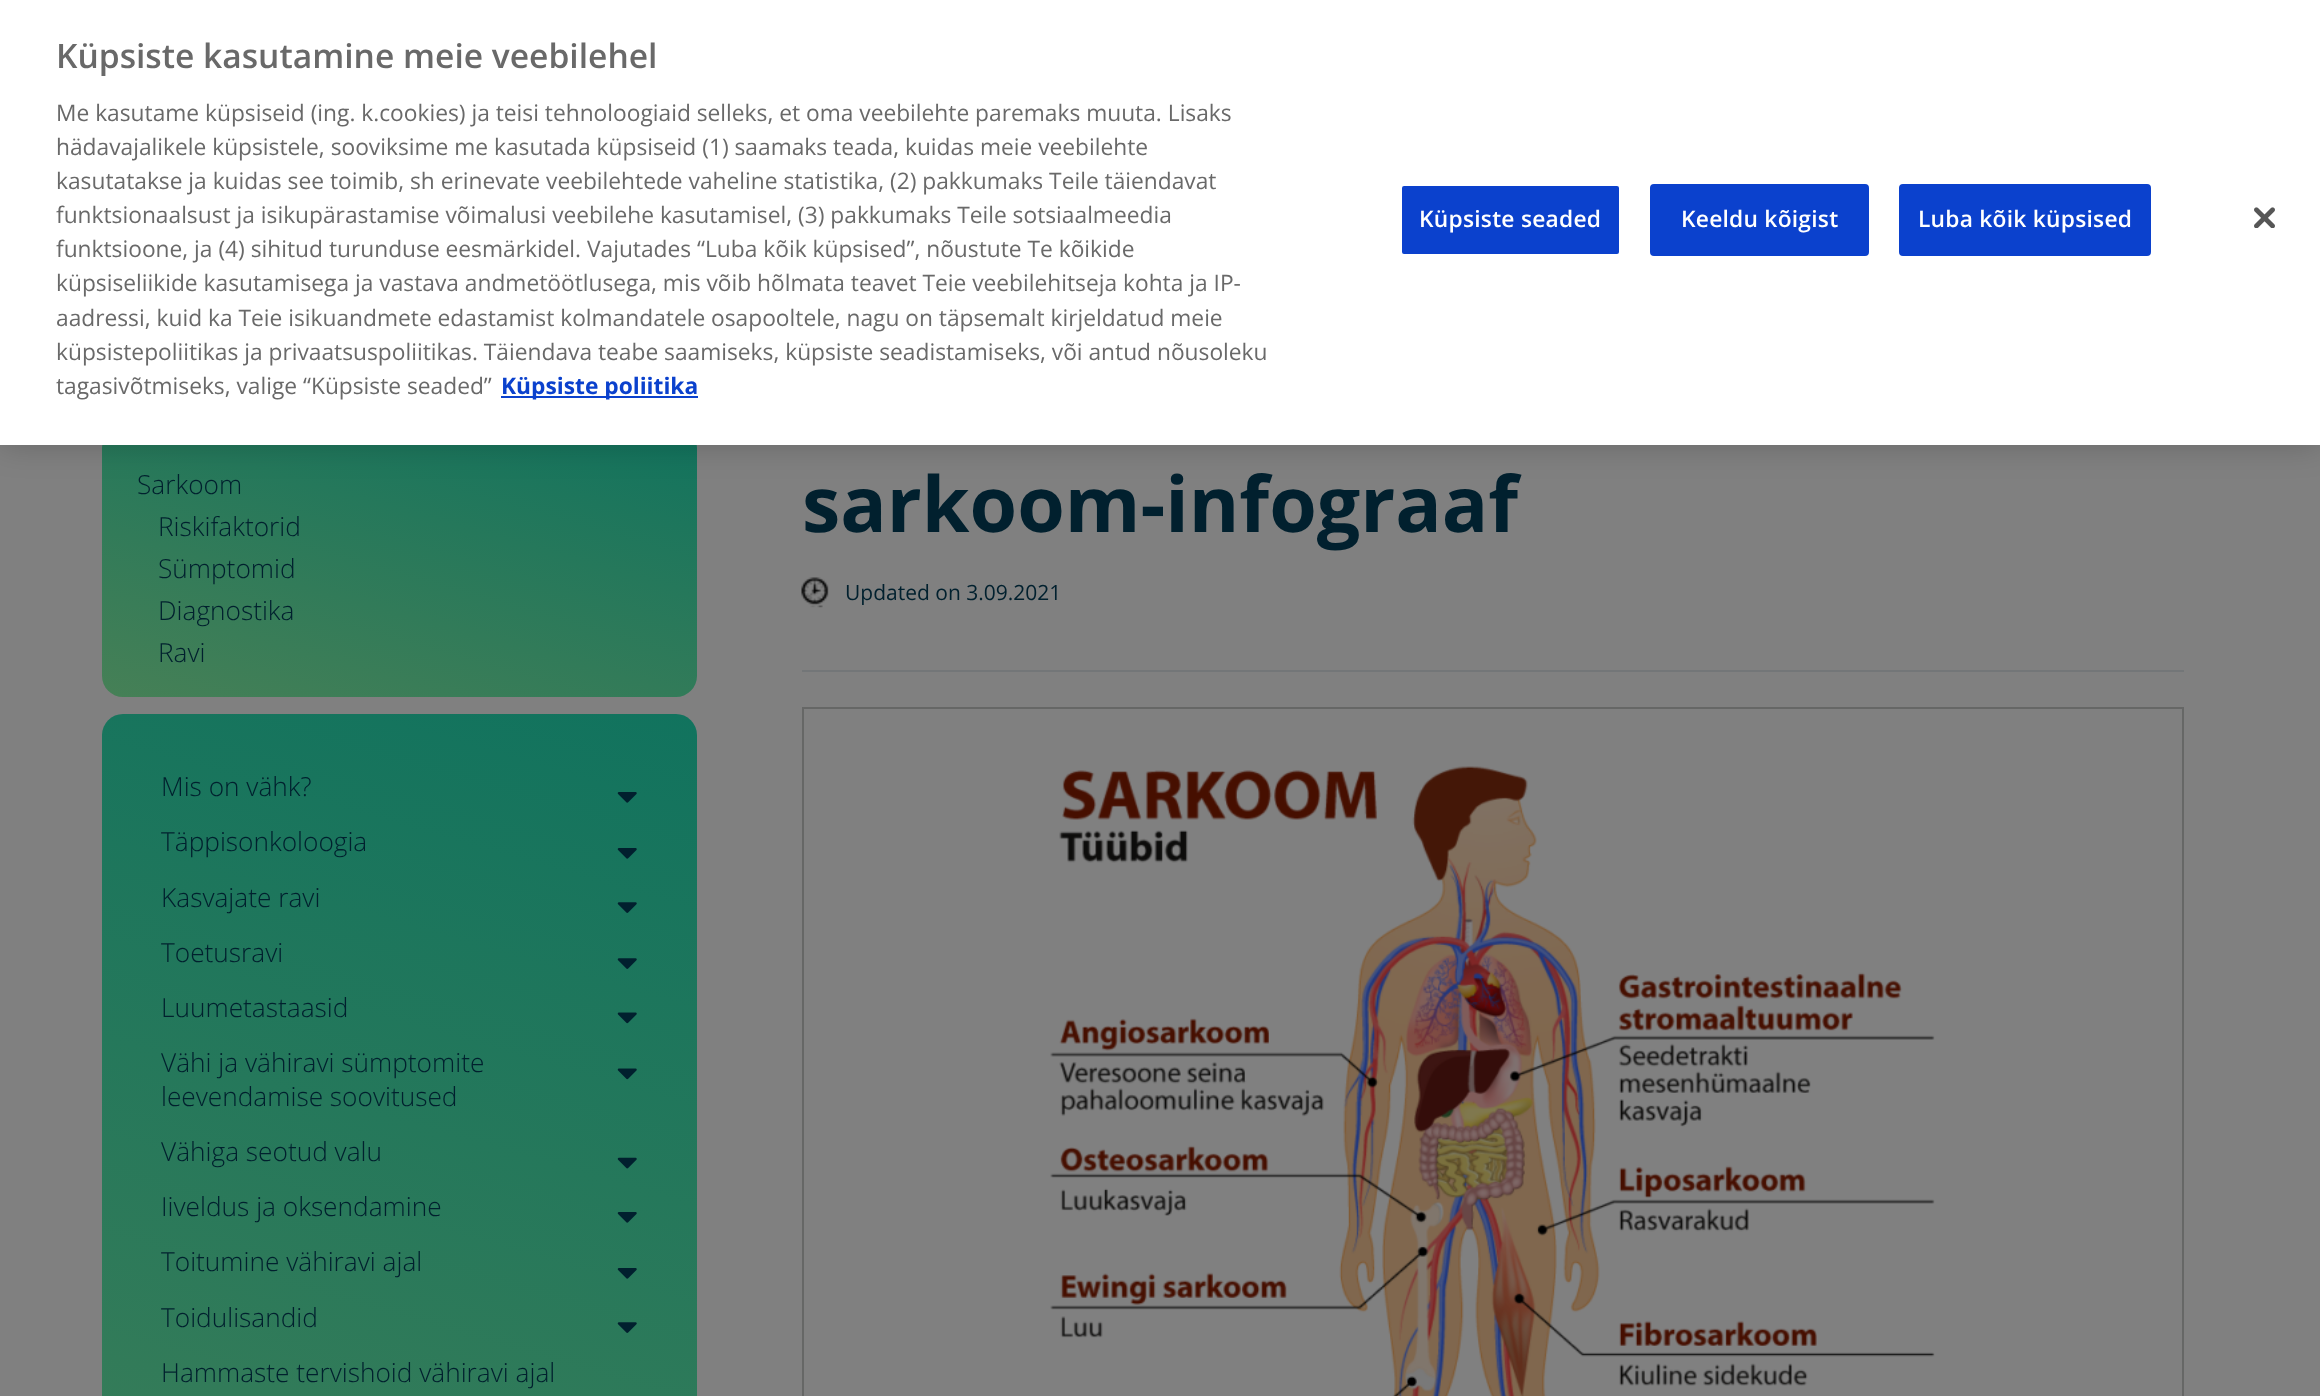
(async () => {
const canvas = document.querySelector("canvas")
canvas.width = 2320
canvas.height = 1396
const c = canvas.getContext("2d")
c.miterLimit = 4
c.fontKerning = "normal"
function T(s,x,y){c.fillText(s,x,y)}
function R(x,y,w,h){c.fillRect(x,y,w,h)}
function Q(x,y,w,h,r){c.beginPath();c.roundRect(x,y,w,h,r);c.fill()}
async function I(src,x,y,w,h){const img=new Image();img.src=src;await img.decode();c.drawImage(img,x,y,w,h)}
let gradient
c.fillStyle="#808080"
R(0,0,2320,1396)
gradient = c.createLinearGradient(457,358,341,765)
gradient.addColorStop(0,"#11735e")
gradient.addColorStop(1,"#468056")
c.fillStyle = gradient
Q(102,427,595,270,21)
c.fillStyle="#00000033"
c.filter="blur(16px)"
c.beginPath()
c.rect(0,0,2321,445)
c.fill()
c.filter="none"
c.fillStyle="#fff"
R(0,0,2320,445)
c.font="600 33.6px Open Sans"
c.fillStyle="#696969"
T("Küpsiste kasutamine meie veebilehel",56,68)
c.font="22.75px Open Sans"
T("Me kasutame küpsiseid (ing. k.cookies) ja teisi tehnoloogiaid selleks, et oma veebilehte paremaks muuta. Lisaks",56,121)
T("hädavajalikele küpsistele, sooviksime me kasutada küpsiseid (1) saamaks teada, kuidas meie veebilehte",56,155)
T("kasutatakse ja kuidas see toimib, sh erinevate veebilehtede vaheline statistika, (2) pakkumaks Teile täiendavat",56,189)
T("funktsionaalsust ja isikupärastamise võimalusi veebilehe kasutamisel, (3) pakkumaks Teile sotsiaalmeedia",56,223)
T("funktsioone, ja (4) sihitud turunduse eesmärkidel. Vajutades “Luba kõik küpsised”, nõustute Te kõikide",56,257)
T("küpsiseliikide kasutamisega ja vastava andmetöötlusega, mis võib hõlmata teavet Teie veebilehitseja kohta ja IP-",56,291)
T("aadressi, kuid ka Teie isikuandmete edastamist kolmandatele osapooltele, nagu on täpsemalt kirjeldatud meie",56,326)
T("küpsistepoliitikas ja privaatsuspoliitikas. Täiendava teabe saamiseks, küpsiste seadistamiseks, või antud nõusoleku",56,360)
T("tagasivõtmiseks, valige “Küpsiste seaded”",56,394)
c.fillStyle="#0b41cd"
R(501,396,197,2)
c.font="bold 22.75px Open Sans"
T("Küpsiste poliitika",501,394)
c.beginPath()
c.roundRect(1401,185,219,70,3)
c.fill()
c.strokeStyle="#fff"
c.lineWidth=2
c.stroke()
c.letterSpacing="0.25px"
c.font="600 22.75px Open Sans"
c.fillStyle="#fff"
T("Küpsiste seaded",1419,227)
c.fillStyle="#0b41cd"
c.beginPath()
c.roundRect(1651,185,217,70,3)
c.fill()
c.strokeStyle="#0b41cd"
c.stroke()
c.fillStyle="#fff"
T("Keeldu kõigist",1681,227)
c.fillStyle="#0b41cd"
c.beginPath()
c.roundRect(1900,185,250,70,3)
c.fill()
c.stroke()
c.fillStyle="#fff"
T("Luba kõik küpsised",1918,227)
await I("1.png",2254,207,21,21)
c.letterSpacing="0px"
c.font="300 26.25px Open Sans"
c.fillStyle="#01202e"
T("Sarkoom",137,494)
T("Riskifaktorid",158,536)
T("Sümptomid",158,578)
T("Diagnostika",158,620)
T("Ravi",158,662)
gradient = c.createLinearGradient(572,678,226,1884)
gradient.addColorStop(0,"#11735e")
gradient.addColorStop(1,"#468056")
c.fillStyle = gradient
Q(102,714,595,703,21)
c.fillStyle="#01202e"
T("Mis on vähk?",161,796)
await I("2.png",617,792,20,11)
T("Täppisonkoloogia",161,851)
await I("3.png",617,848,20,11)
T("Kasvajate ravi",161,907)
await I("4.png",617,902,20,11)
T("Toetusravi",161,962)
await I("5.png",617,958,20,11)
T("Luumetastaasid",161,1017)
await I("6.png",617,1012,20,12)
T("Vähi ja vähiravi sümptomite",161,1072)
await I("7.png",617,1068,20,12)
T("leevendamise soovitused",161,1106)
T("Vähiga seotud valu",161,1161)
await I("8.png",617,1157,20,12)
T("Iiveldus ja oksendamine",161,1216)
await I("9.png",617,1212,20,11)
T("Toitumine vähiravi ajal",161,1271)
await I("10.png",617,1268,20,11)
T("Toidulisandid",161,1327)
await I("11.png",617,1322,20,11)
T("Hammaste tervishoid vähiravi ajal",161,1382)
c.fillStyle="#737678"
R(802,670,1382,2)
c.font="bold 77px Open Sans"
c.fillStyle="#01202e"
T("sarkoom-infograaf",802,532)
await I("12.png",801,577,28,31)
c.font="21px Open Sans"
T("Updated on 3.09.2021",845,600)
c.strokeStyle="#666766"
c.strokeRect(803,708,1380,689)
await I("13.png",1050,766,885,630)
})()
